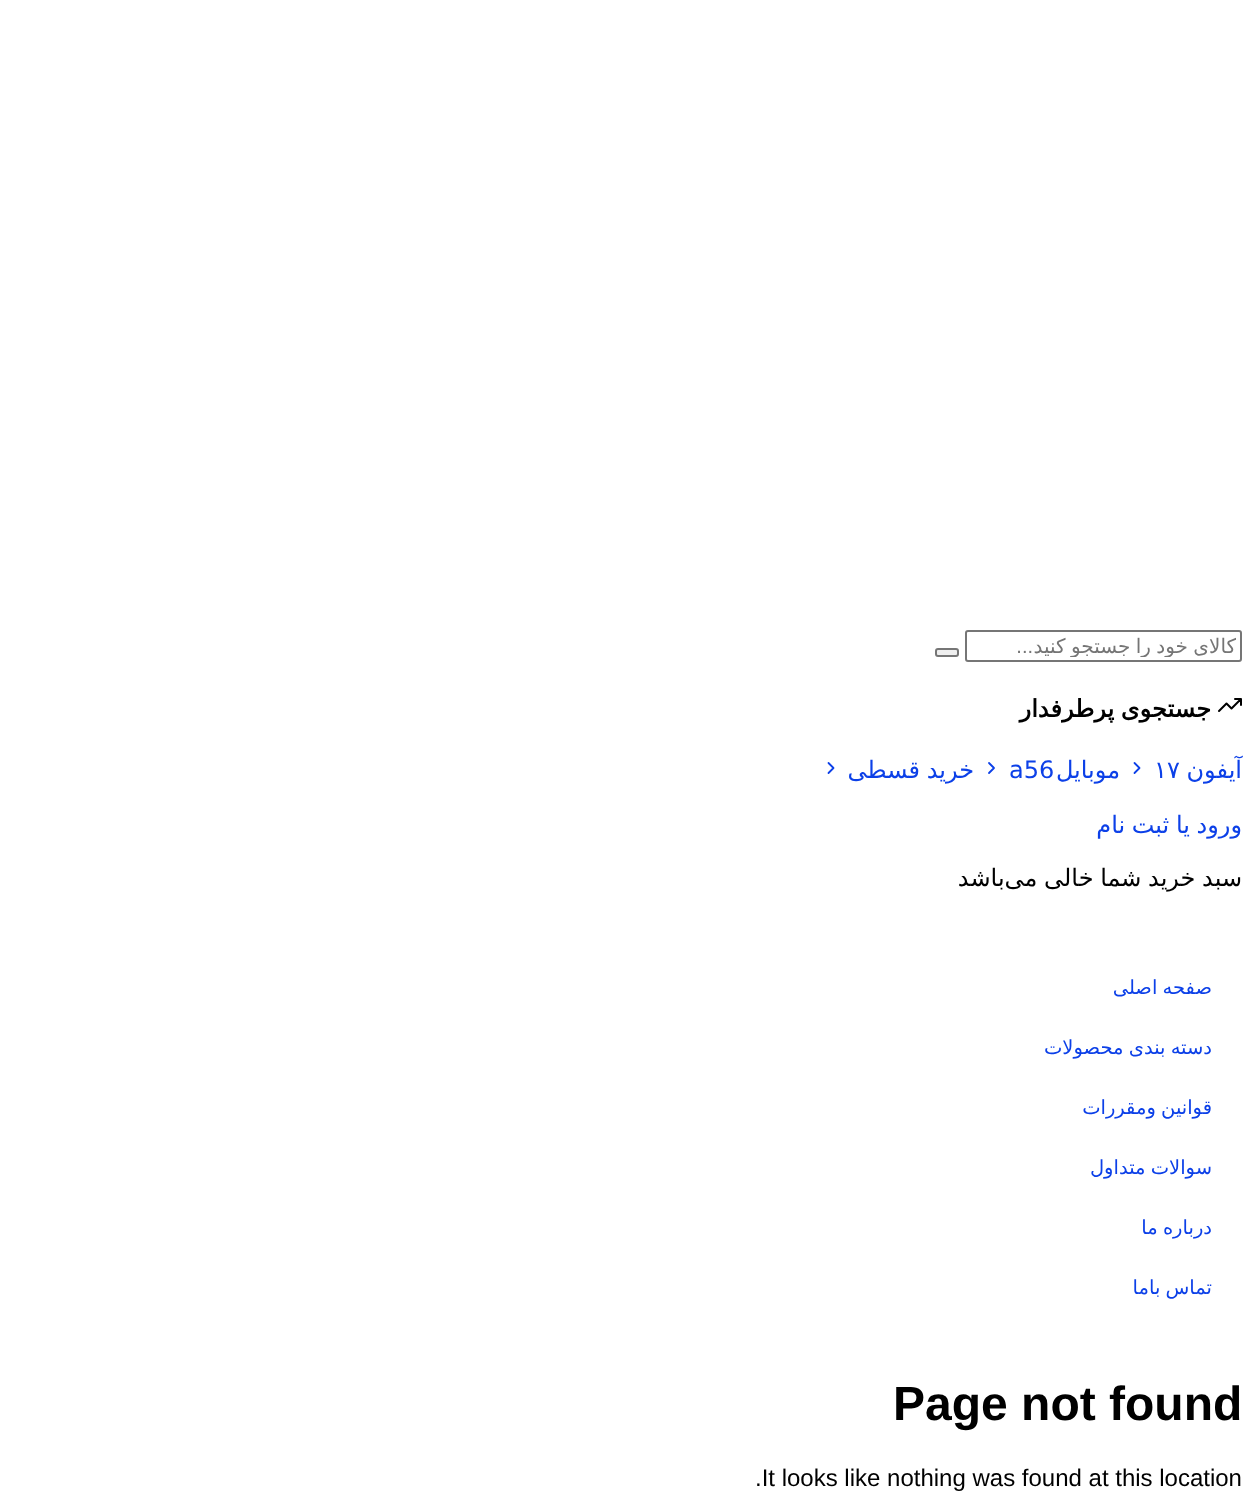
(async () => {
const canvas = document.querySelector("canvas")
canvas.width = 1254
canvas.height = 1501
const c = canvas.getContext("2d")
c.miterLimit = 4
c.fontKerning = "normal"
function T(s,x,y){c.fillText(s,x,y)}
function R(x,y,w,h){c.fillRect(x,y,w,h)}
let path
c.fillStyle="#fff"
R(0,0,1254,1501)
c.beginPath()
c.roundRect(966,631,275,30,2)
c.strokeStyle="#767676"
c.lineWidth=2
c.stroke()
c.save()
c.beginPath()
c.rect(990,635,246,22)
c.clip()
c.wordSpacing="-1px"
c.direction="rtl"
c.font="20px DejaVu Sans"
c.fillStyle="#757575"
T("کالای خود را جستجو کنید",1236,653)
c.restore()
c.direction="rtl"
c.font="20px Liberation Sans"
c.fillStyle="#757575"
T("...",1033,653)
c.fillStyle="#efefef"
c.beginPath()
c.roundRect(936,649,22,7,2)
c.fill()
c.stroke()
path = new Path2D("M1241 699l-9.5 9.5l-5-5l-7.5 7.5m16-12h6v6")
c.strokeStyle="#000"
c.lineCap="round"
c.lineJoin="round"
c.stroke(path)
c.wordSpacing="-1px"
c.font="bold 24px DejaVu Sans"
c.fillStyle="#000"
T("جستجوی پرطرفدار",1211,717)
c.wordSpacing="0px"
c.font="24px DejaVu Sans"
c.fillStyle="#0c40e8"
T("آیفون",1242,778)
c.direction="ltr"
T("۱۷",1154,778)
path = new Path2D("M1134.5 773l5-5l-5-5")
c.strokeStyle="#0c40e8"
c.lineWidth=1.8
c.stroke(path)
c.direction="rtl"
T("موبایل",1120,778)
c.direction="ltr"
T("a56",1009,778)
path = new Path2D("M989 773l5-5l-5-5")
c.stroke(path)
c.wordSpacing="-1px"
c.direction="rtl"
T("خرید قسطی",974,778)
path = new Path2D("M828.5 773l5-5l-5-5")
c.stroke(path)
T("ورود یا ثبت نام",1242,833)
c.fillStyle="#000"
T("سبد خرید شما خالی می‌باشد",1242,886)
c.font="19.5px DejaVu Sans"
c.fillStyle="#0c40e8"
T("صفحه اصلی",1212,994)
T("دسته بندی محصولات",1212,1054)
T("قوانین ومقررات",1212,1114)
T("سوالات متداول",1212,1174)
T("درباره ما",1212,1234)
T("تماس باما",1212,1294)
c.wordSpacing="0px"
c.direction="ltr"
c.font="bold 48px Liberation Sans"
c.fillStyle="#000"
T("Page not found",893,1420)
c.font="24px Liberation Sans"
T(".It looks like nothing was found at this location",755,1486)
})()
